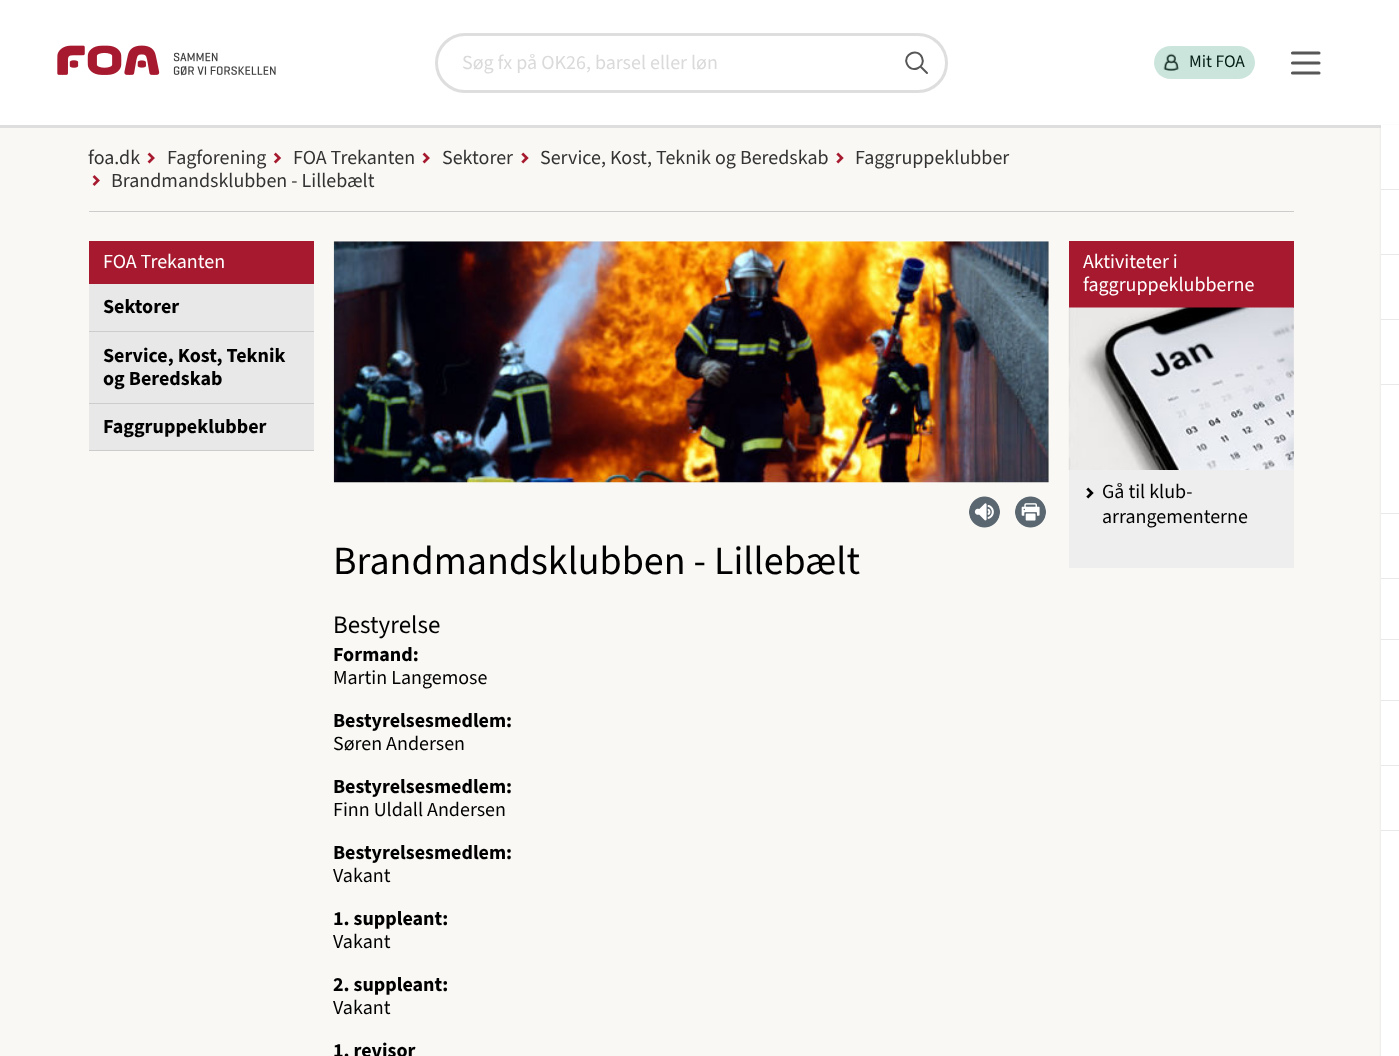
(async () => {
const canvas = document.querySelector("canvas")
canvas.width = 1399
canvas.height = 1056
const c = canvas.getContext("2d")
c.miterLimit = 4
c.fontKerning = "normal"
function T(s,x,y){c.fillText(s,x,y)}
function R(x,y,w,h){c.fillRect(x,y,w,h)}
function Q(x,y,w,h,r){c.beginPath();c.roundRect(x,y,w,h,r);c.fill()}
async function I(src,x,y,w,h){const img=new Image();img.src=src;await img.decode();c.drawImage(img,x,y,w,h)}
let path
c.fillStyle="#fff"
R(0,0,1399,1056)
c.fillStyle="#f9f8f4"
R(0,128,1381,928)
c.fillStyle="#dedede"
R(0,125,1381,3)
await I("1.png",57,45,219,31)
c.beginPath()
c.roundRect(436.5,34.5,510,57,28.5)
c.strokeStyle="#dedede"
c.lineWidth=3
c.stroke()
c.font="20px 'Source Sans 3'"
c.fillStyle="#dadada"
T("Søg fx på OK26, barsel eller løn",462,69)
path = new Path2D("M907 64c4 10 19.5 3.5 15-6.5c-4-10-19.5-3.5-15 6.5zm13.5 2.5l6.5 6.5")
c.strokeStyle="#575757"
c.lineWidth=2
c.lineCap="round"
c.lineJoin="round"
c.stroke(path)
c.fillStyle="#cce5dc"
Q(1154,46,101,33,16.5)
await I("2.png",1163,53,16,18)
c.font="17.5px 'Source Sans 3'"
c.fillStyle="#041d14"
T("Mit FOA",1189,67)
path = new Path2D("M1292.5 53h26.5m-26.5 10h26.5m-26.5 10h26.5")
c.lineWidth=3.1
c.lineJoin="miter"
c.stroke(path)
c.fillStyle="#dedede"
c.filter="blur(1px)"
c.beginPath()
c.rect(1381,126,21,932)
c.fill()
c.filter="none"
c.fillStyle="#fff"
R(1381,125,18,931)
c.fillStyle="#e9e9e9"
R(1381,189,18,1)
R(1381,254,18,1)
R(1381,319,18,1)
R(1381,384,18,1)
R(1381,513,18,1)
R(1381,578,18,1)
R(1381,639,18,1)
R(1381,700,18,1)
R(1381,765,18,1)
R(1381,830,18,1)
c.fillStyle="#ccc"
R(89,211,1205,1)
c.font="20px 'Source Sans 3'"
c.fillStyle="#333"
T("foa.dk",88,164)
await I("3.png",147,152,8,12)
T("Fagforening",167,164)
await I("4.png",273,152,9,12)
T("FOA Trekanten",293,164)
await I("3.png",422,152,8,12)
T("Sektorer",442,164)
await I("5.png",521,152,8,12)
T("Service, Kost, Teknik og Beredskab",540,164)
await I("5.png",836,152,8,12)
T("Faggruppeklubber",855,164)
await I("6.png",92,175,8,11)
T("Brandmandsklubben - Lillebælt",111,187)
c.fillStyle="#a6192e"
R(89,241,225,43)
c.fillStyle="#fff"
T("FOA Trekanten",103,268)
c.fillStyle="#e8e8e8"
R(89,284,225,119)
c.fillStyle="#ccc"
R(89,331,225,1)
c.font="bold 20px 'Source Sans 3'"
c.fillStyle="#000"
T("Sektorer",103,313)
c.fillStyle="#ccc"
R(89,403,225,1)
c.fillStyle="#000"
T("Service, Kost, Teknik",103,362)
T("og Beredskab",103,385)
c.fillStyle="#e8e8e8"
R(89,404,225,46)
c.fillStyle="#ccc"
R(89,450,225,1)
c.fillStyle="#000"
T("Faggruppeklubber",103,433)
c.fillStyle="#eee"
R(1069,308,225,260)
c.fillStyle="#a6192e"
R(1069,241,225,67)
c.font="20px 'Source Sans 3'"
c.fillStyle="#fff"
T("Aktiviteter i",1083,268)
T("faggruppeklubberne",1083,291)
await I("7.png",1068,307,226,163)
await I("8.png",1086,487,8,12)
c.fillStyle="#000"
T("Gå til klub-",1102,498)
T("arrangementerne",1102,523)
await I("9.png",333,241,716,242)
await I("10.png",969,496,31,32)
await I("11.png",1015,496,31,32)
c.font="40px 'Source Sans 3'"
T("Brandmandsklubben - Lillebælt",333,574)
c.font="25px 'Source Sans 3'"
T("Bestyrelse",333,633)
c.font="bold 20px 'Source Sans 3'"
T("Formand:",333,661)
c.font="20px 'Source Sans 3'"
T("Martin Langemose",333,684)
c.font="bold 20px 'Source Sans 3'"
T("Bestyrelsesmedlem:",333,727)
c.font="20px 'Source Sans 3'"
T("Søren Andersen",333,750)
c.font="bold 20px 'Source Sans 3'"
T("Bestyrelsesmedlem:",333,793)
c.font="20px 'Source Sans 3'"
T("Finn Uldall Andersen",333,816)
c.font="bold 20px 'Source Sans 3'"
T("Bestyrelsesmedlem:",333,859)
c.font="20px 'Source Sans 3'"
T("Vakant",333,882)
c.font="bold 20px 'Source Sans 3'"
T("1. suppleant:",333,925)
c.font="20px 'Source Sans 3'"
T("Vakant",333,948)
c.font="bold 20px 'Source Sans 3'"
T("2. suppleant:",333,991)
c.font="20px 'Source Sans 3'"
T("Vakant",333,1014)
c.font="bold 20px 'Source Sans 3'"
T("1. revisor",333,1057)
})()
